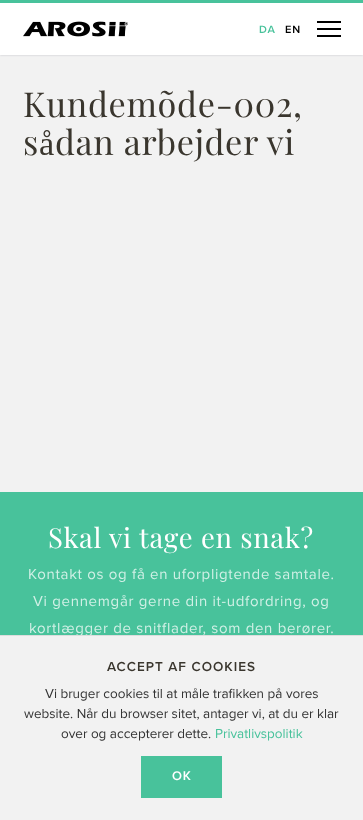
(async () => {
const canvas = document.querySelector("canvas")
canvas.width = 363
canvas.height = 820
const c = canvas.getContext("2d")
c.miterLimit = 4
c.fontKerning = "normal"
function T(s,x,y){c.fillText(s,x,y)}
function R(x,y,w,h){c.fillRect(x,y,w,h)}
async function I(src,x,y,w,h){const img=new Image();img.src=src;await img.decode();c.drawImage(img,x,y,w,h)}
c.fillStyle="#f2f2f2"
R(0,0,363,820)
c.fillStyle="#0e152f33"
c.filter="blur(1px)"
c.beginPath()
c.rect(0,0,363,55)
c.fill()
c.filter="none"
c.fillStyle="#fff"
R(0,3,363,52)
c.fillStyle="#48c29b"
R(0,0,363,3)
await I("1.png",23,21,105,16)
c.letterSpacing="1px"
c.font="11px 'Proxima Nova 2'"
T("DA",259,33)
c.fillStyle="#000"
T("EN",285,33)
R(317,28,24,2)
R(317,21,24,2)
R(317,35,24,2)
c.letterSpacing="0.7px"
c.font="34.25px Playfair Display"
c.fillStyle="#3a362e"
T("Kundemõde-002,",23,117)
T("sådan arbejder vi",23,155)
c.fillStyle="#48c29b"
R(0,492,363,143)
c.font="27.5px Playfair Display"
c.fillStyle="#fff"
T("Skal vi tage en snak?",48,548)
c.font="15px Proxima Nova"
c.fillStyle="#d1f0e6"
T("Kontakt os og få en uforpligtende samtale.",28,579)
T("Vi gennemgår gerne din it-udfordring, og",33,606)
T("kortlægger de snitflader, som den berører.",29,633)
c.fillStyle="#ddd"
R(0,635,363,1)
c.letterSpacing="1px"
c.font="13.5px 'Proxima Nova 2'"
c.fillStyle="#3a362e"
T("ACCEPT AF COOKIES",107,671)
c.letterSpacing="0px"
c.font="13.5px Proxima Nova"
c.fillStyle="#333"
T("Vi bruger cookies til at måle trafikken på vores",45,698)
T("website. Når du browser sitet, antager vi, at du er klar",24,718)
T("over og accepterer dette.",61,738)
c.fillStyle="#48c29b"
T("Privatlivspolitik",215,738)
R(141,756,81,42)
c.letterSpacing="0.7px"
c.font="13px 'Proxima Nova 2'"
c.fillStyle="#fff"
T("OK",172,780)
})()
